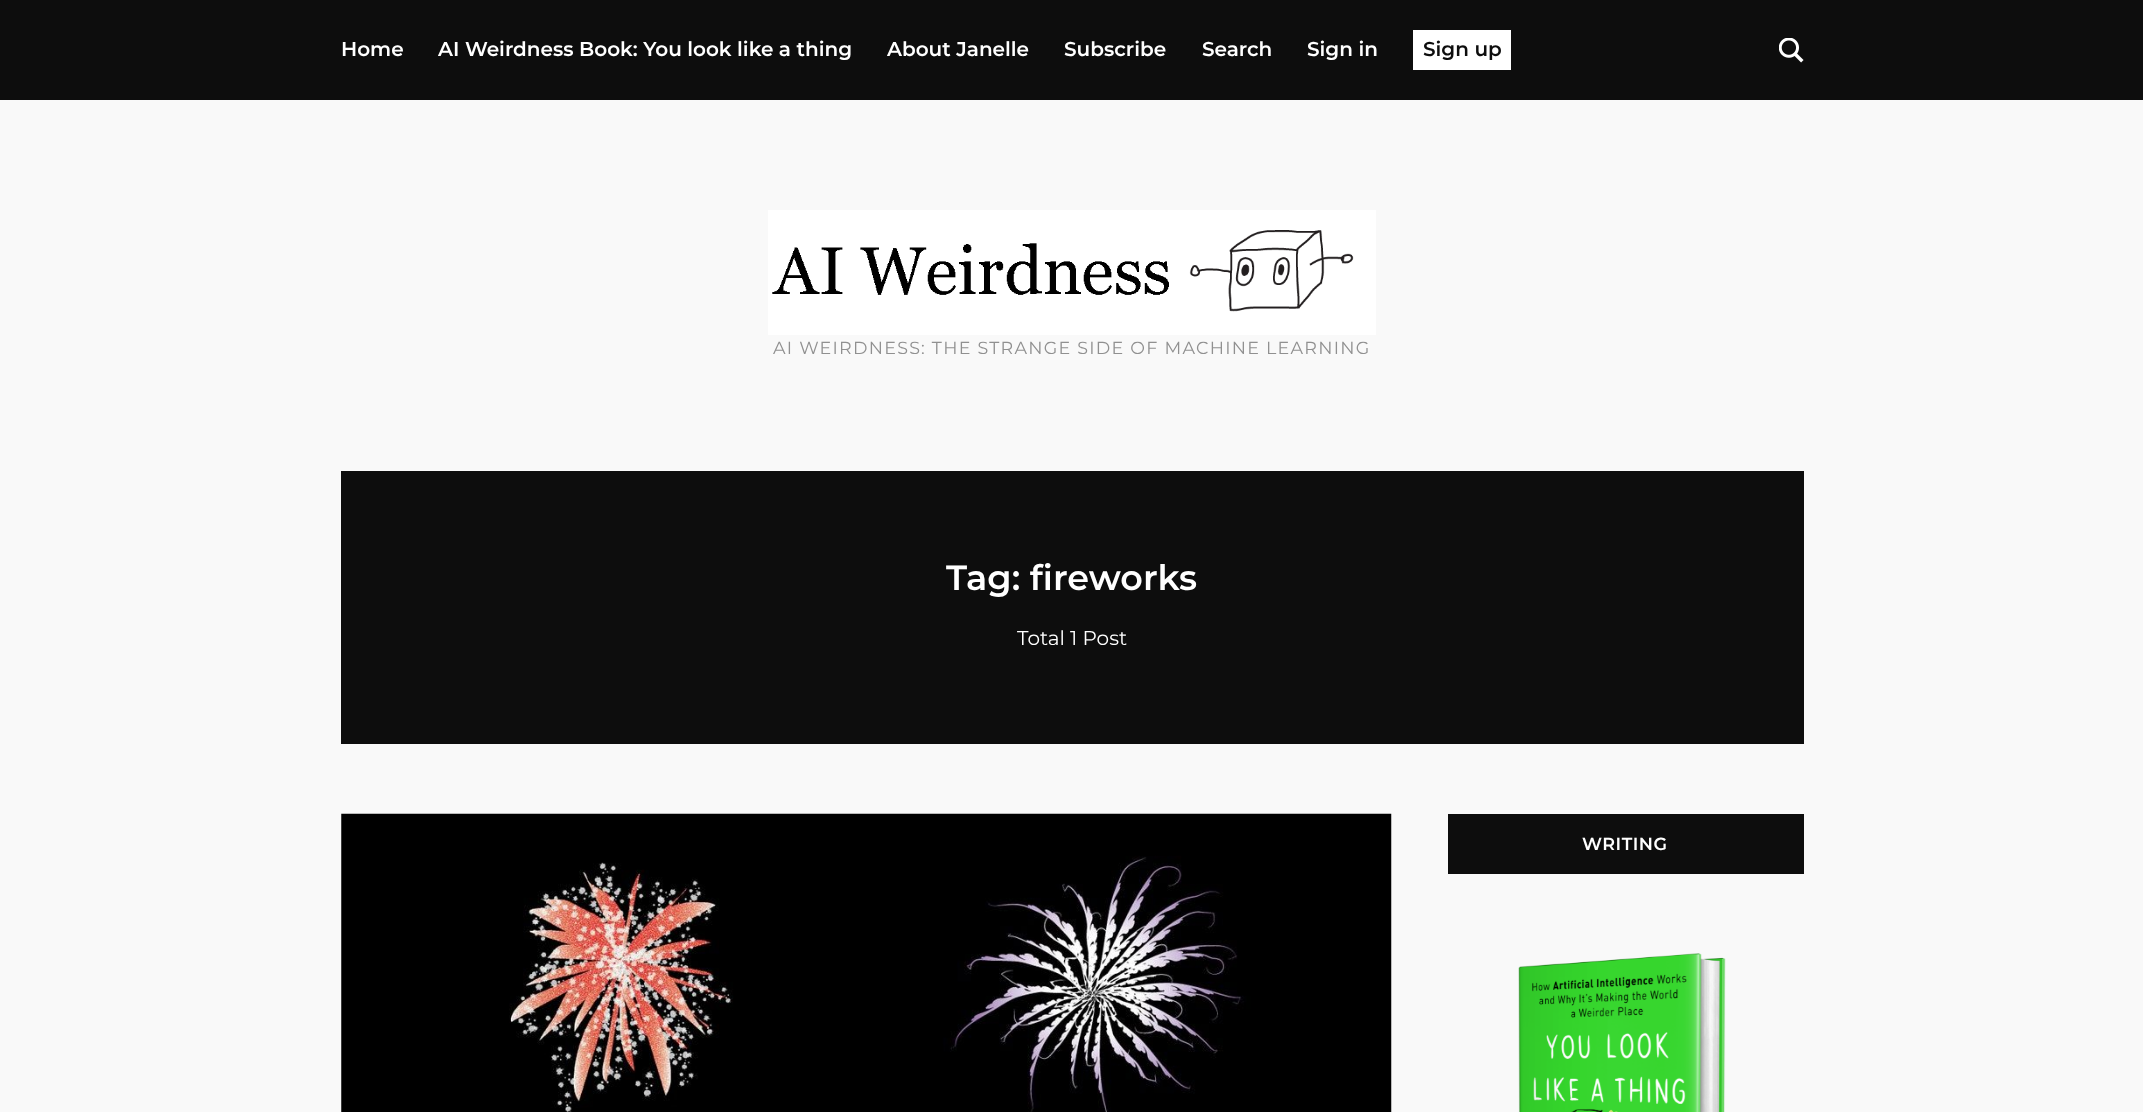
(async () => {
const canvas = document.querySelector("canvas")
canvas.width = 2143
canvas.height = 1112
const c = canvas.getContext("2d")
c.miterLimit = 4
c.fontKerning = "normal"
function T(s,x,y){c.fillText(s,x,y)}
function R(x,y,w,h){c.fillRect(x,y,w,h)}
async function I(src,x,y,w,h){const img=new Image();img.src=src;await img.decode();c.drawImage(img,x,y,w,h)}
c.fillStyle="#f9f9f9"
R(0,0,2143,1112)
c.fillStyle="#0d0d0d"
R(0,0,2143,100)
c.font="600 20px Montserrat"
c.fillStyle="#fff"
T("Home",341,56)
T("AI Weirdness Book: You look like a thing",438,56)
T("About Janelle",887,56)
T("Subscribe",1064,56)
T("Search",1202,56)
T("Sign in",1307,56)
R(1413,30,98,40)
c.fillStyle="#0d0d0d"
T("Sign up",1423,56)
await I("1.png",1779,38,25,25)
await I("2.png",768,210,608,125)
c.letterSpacing="1.25px"
c.font="17.5px Montserrat"
c.fillStyle="#909090"
T("AI WEIRDNESS: THE STRANGE SIDE OF MACHINE LEARNING",773,354)
c.fillStyle="#0d0d0d"
R(341,471,1463,273)
c.letterSpacing="0px"
c.font="600 35px Montserrat"
c.fillStyle="#fff"
T("Tag: fireworks",946,590)
c.font="20px Montserrat"
T("Total 1 Post",1017,645)
await I("3.png",341,813,1051,299)
c.fillStyle="#0d0d0d"
R(1448,814,356,60)
c.letterSpacing="0.5px"
c.font="600 17.5px Montserrat"
c.fillStyle="#fff"
T("WRITING",1582,850)
await I("4.png",1518,953,208,159)
})()
